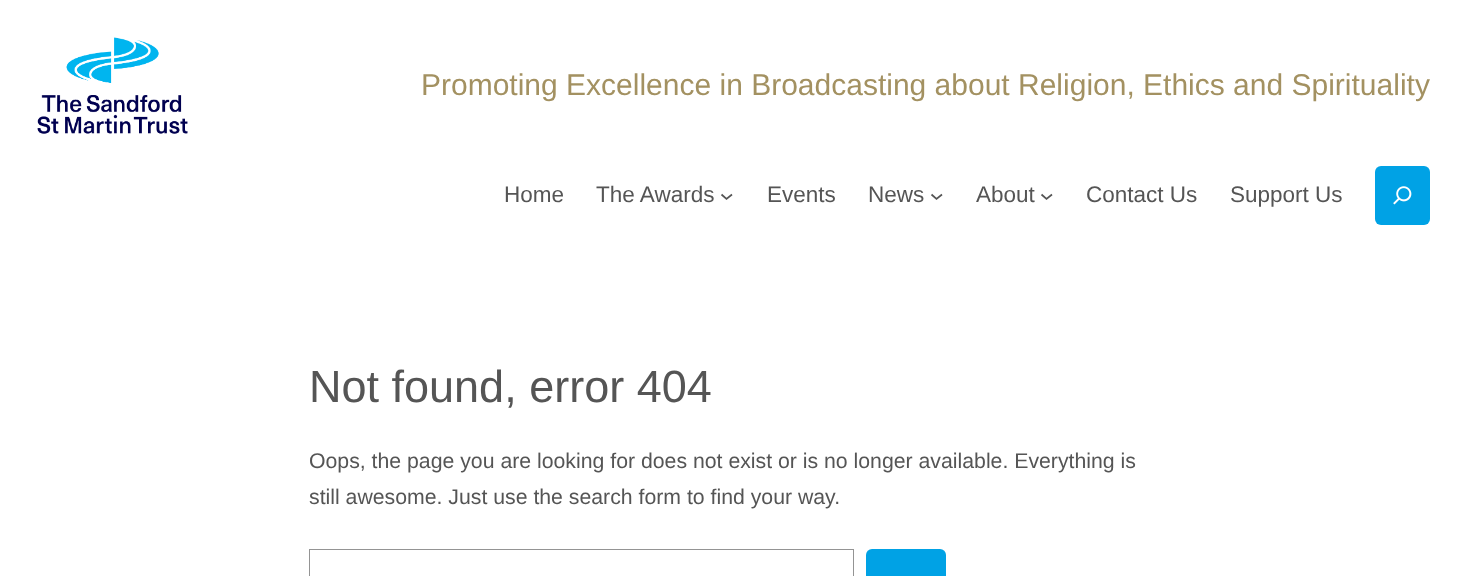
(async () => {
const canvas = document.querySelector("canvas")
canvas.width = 1467
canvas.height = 576
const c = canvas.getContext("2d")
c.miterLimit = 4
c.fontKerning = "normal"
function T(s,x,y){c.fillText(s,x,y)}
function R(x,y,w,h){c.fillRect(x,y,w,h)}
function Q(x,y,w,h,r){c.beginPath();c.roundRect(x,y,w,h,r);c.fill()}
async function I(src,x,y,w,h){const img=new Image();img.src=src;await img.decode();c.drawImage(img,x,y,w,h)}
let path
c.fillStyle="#fff"
R(0,0,1467,576)
await I("1.png",37,37,151,97)
c.font="30px Liberation Sans"
c.fillStyle="#a39161"
T("Promoting Excellence in Broadcasting about Religion, Ethics and Spirituality",421,95)
c.font="22.5px Liberation Sans"
c.fillStyle="#555"
T("Home",504,202)
T("The Awards",596,202)
path = new Path2D("M721.5 194.5l5 4.5l5.5-4.5")
c.strokeStyle="#555"
c.lineWidth=1.7
c.stroke(path)
T("Events",767,202)
T("News",868,202)
path = new Path2D("M931.5 194.5l5 4.5l5.5-4.5")
c.stroke(path)
T("About",976,202)
path = new Path2D("M1041.5 194.5l5 4.5l5.5-4.5")
c.stroke(path)
T("Contact Us",1086,202)
T("Support Us",1230,202)
c.fillStyle="#00a2e5"
Q(1375,166,55,59,6)
await I("2.png",1393,186,19,19)
c.font="45px Liberation Sans"
c.fillStyle="#555"
T("Not found, error 404",309,402)
c.font="21.25px Liberation Sans"
T("Oops, the page you are looking for does not exist or is no longer available. Everything is",309,468)
T("still awesome. Just use the search form to find your way.",309,504)
c.strokeStyle="#949494"
c.lineWidth=1
c.strokeRect(309.5,549.5,544,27)
c.fillStyle="#00a2e5"
Q(866,549,80,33,6)
})()
